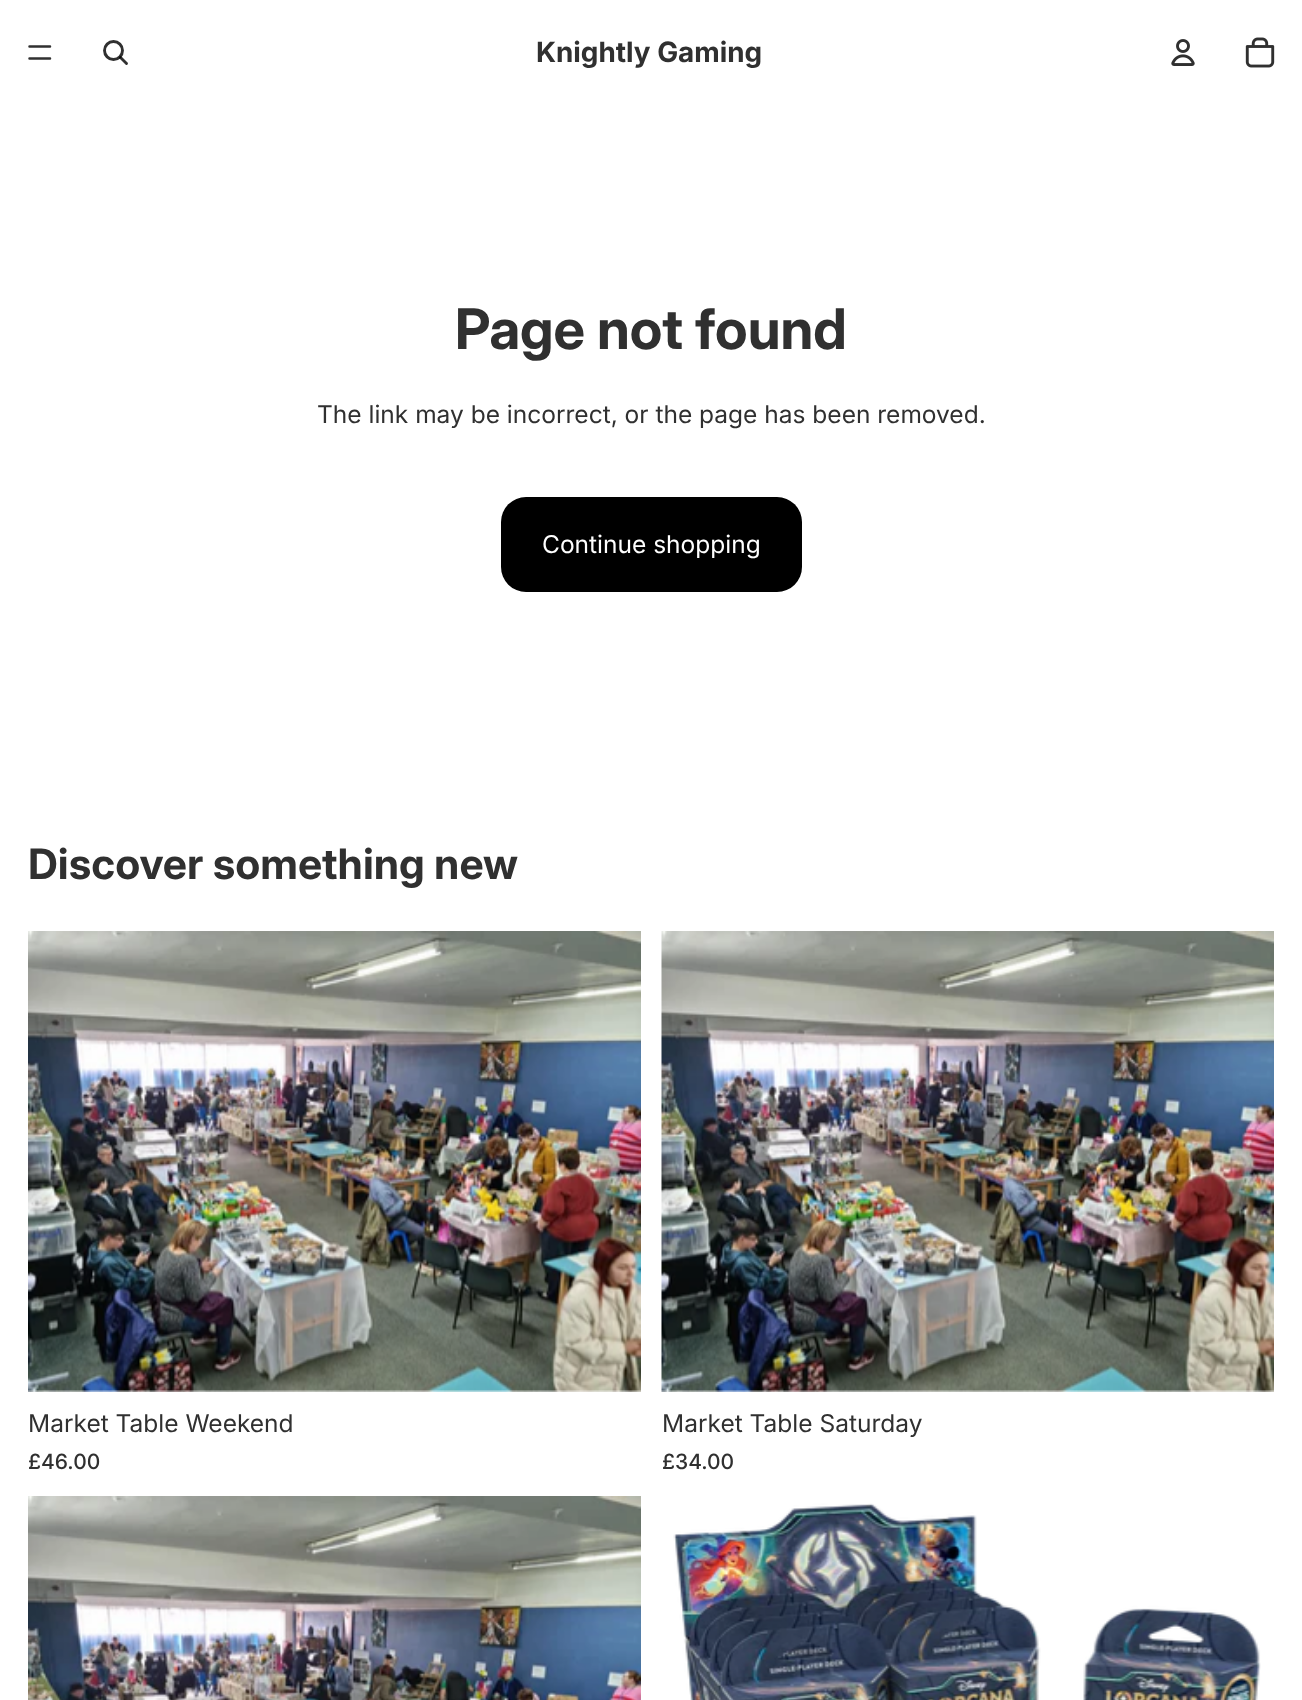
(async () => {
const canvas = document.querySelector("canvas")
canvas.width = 1302
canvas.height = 1700
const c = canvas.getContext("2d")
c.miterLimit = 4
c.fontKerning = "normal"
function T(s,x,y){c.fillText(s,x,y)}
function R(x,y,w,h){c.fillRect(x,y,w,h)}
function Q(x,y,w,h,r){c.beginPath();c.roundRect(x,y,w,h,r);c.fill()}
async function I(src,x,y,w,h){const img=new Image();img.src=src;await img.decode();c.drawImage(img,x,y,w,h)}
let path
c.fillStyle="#fff"
R(0,0,1302,1700)
path = new Path2D("M29.5 46.5h20.5m-20.5 12h20.5")
c.strokeStyle="#303030"
c.lineWidth=2.5
c.lineCap="round"
c.stroke(path)
c.beginPath()
c.arc(113.5,50.5,9,0,7)
c.lineWidth=2.9
c.stroke()
path = new Path2D("M120.5 57.5l6 6")
c.strokeStyle="#000000cf"
c.lineJoin="round"
c.stroke(path)
c.font="bold 28px 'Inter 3'"
c.fillStyle="#303030"
T("Knightly Gaming",536,62)
await I("1.png",1171,39,24,27)
await I("2.png",1245,37,30,31)
c.font="bold 56px Inter"
T("Page not found",455,349)
c.font="24.5px Inter"
T("The link may be incorrect, or the page has been removed.",317,423)
c.fillStyle="#000"
Q(501,497,301,95,25)
c.fillStyle="#fff"
T("Continue shopping",542,553)
c.font="bold 42px 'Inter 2'"
c.fillStyle="#303030"
T("Discover something new",28,879)
await I("3.png",28,931,613,461)
c.font="24.5px Inter"
T("Market Table Weekend",28,1432)
c.font="500 21px Inter"
T("£46.00",28,1469)
await I("4.png",661,931,613,461)
c.font="24.5px Inter"
T("Market Table Saturday",662,1432)
c.font="500 21px Inter"
T("£34.00",662,1469)
await I("5.png",28,1496,613,204)
await I("6.png",673,1503,588,197)
})()
